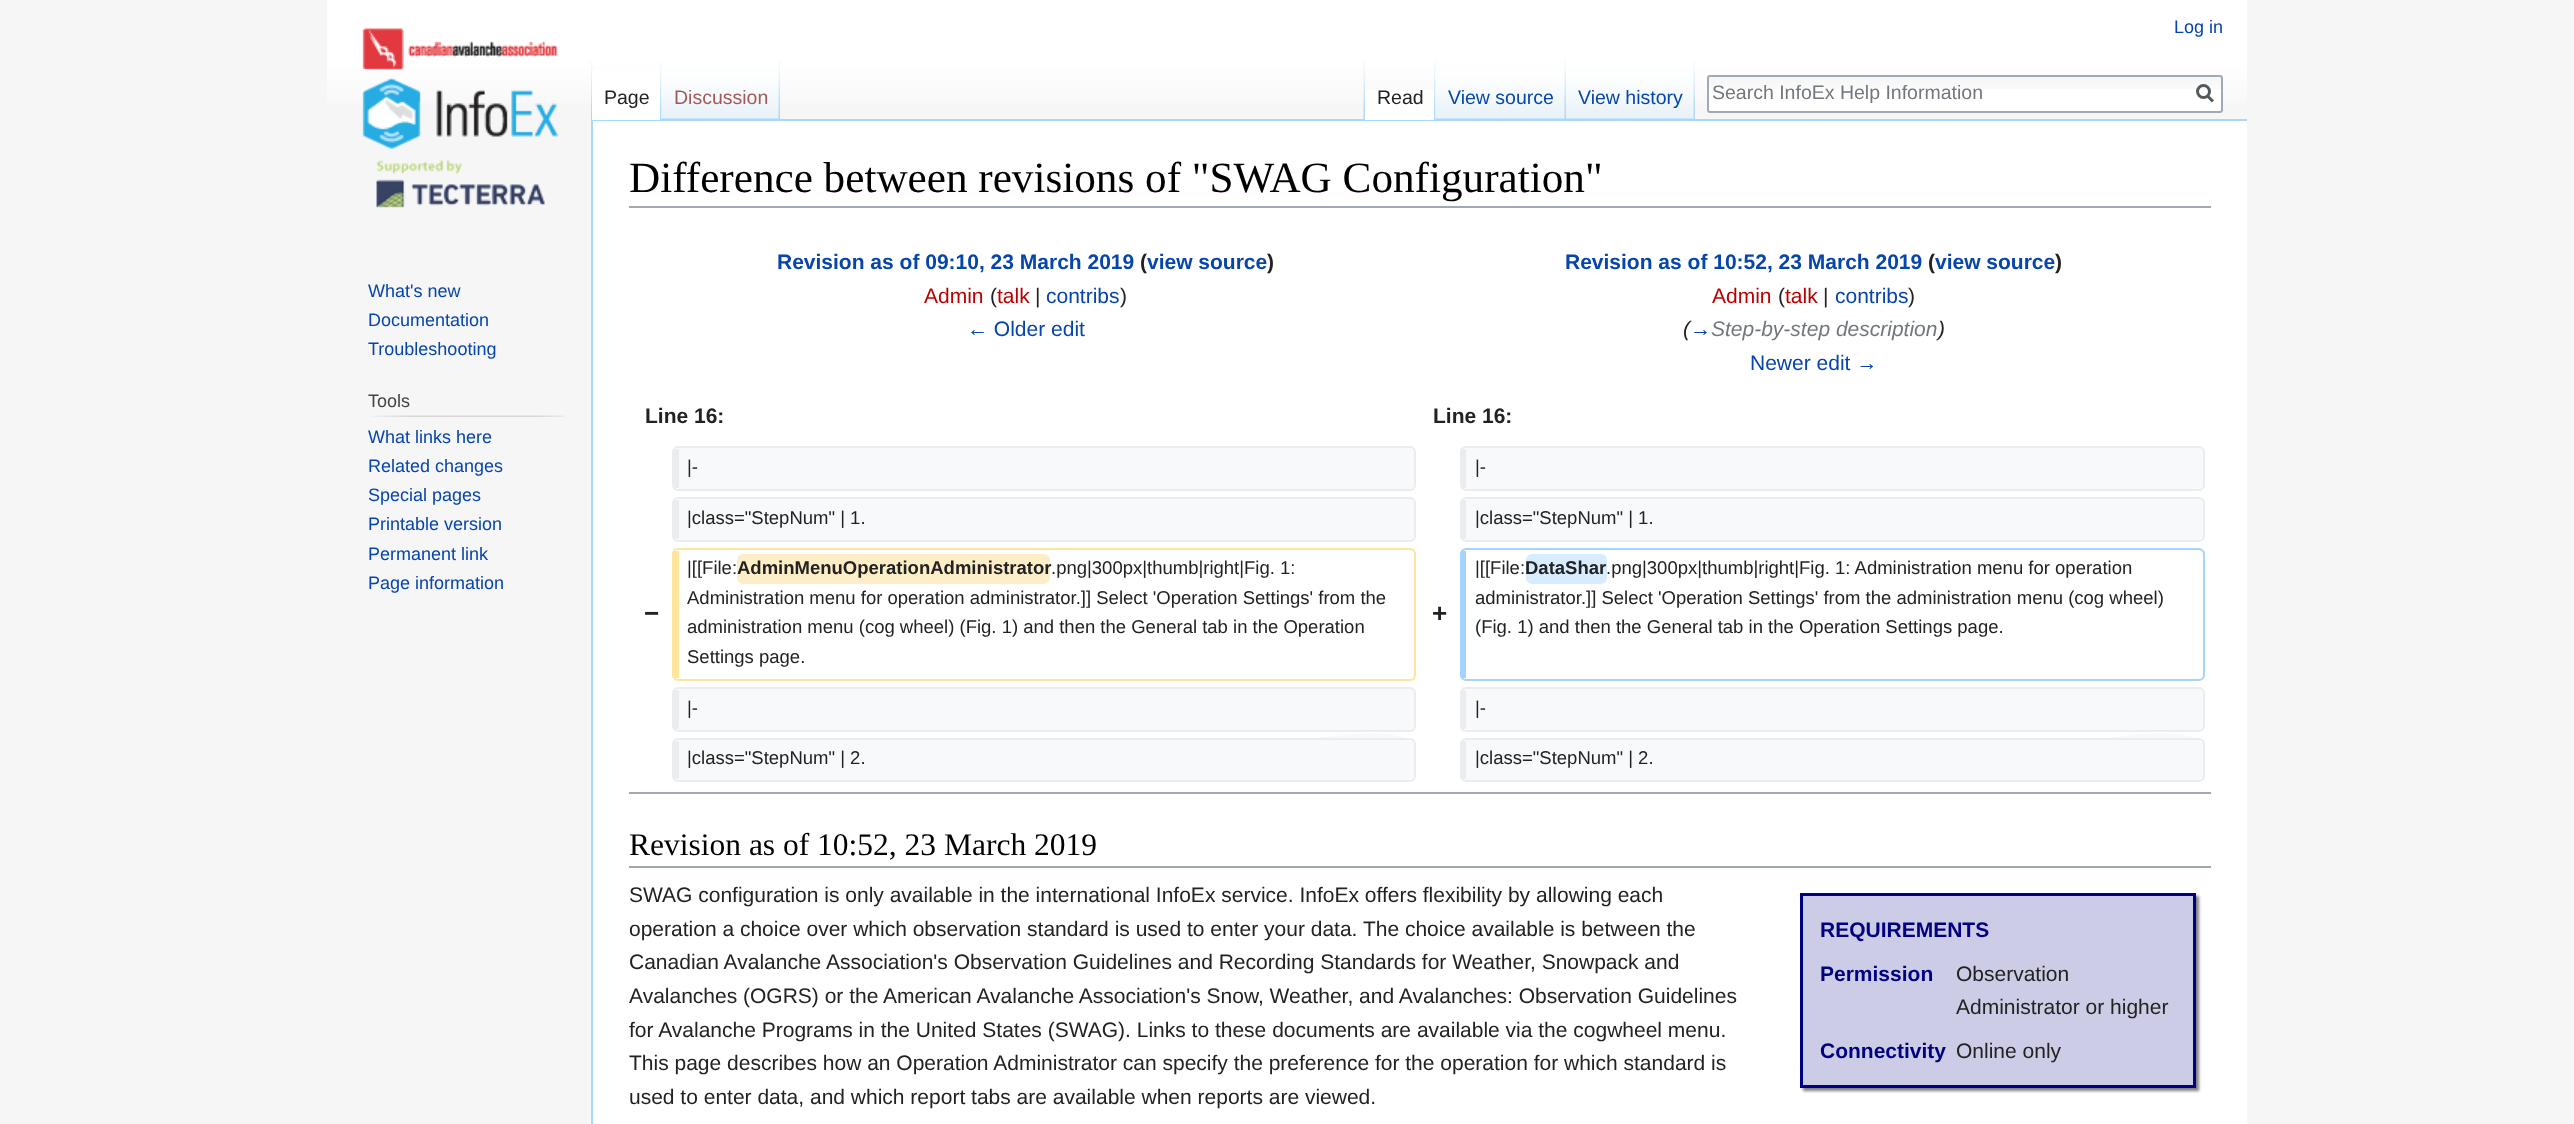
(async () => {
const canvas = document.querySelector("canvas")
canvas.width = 2574
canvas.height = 1124
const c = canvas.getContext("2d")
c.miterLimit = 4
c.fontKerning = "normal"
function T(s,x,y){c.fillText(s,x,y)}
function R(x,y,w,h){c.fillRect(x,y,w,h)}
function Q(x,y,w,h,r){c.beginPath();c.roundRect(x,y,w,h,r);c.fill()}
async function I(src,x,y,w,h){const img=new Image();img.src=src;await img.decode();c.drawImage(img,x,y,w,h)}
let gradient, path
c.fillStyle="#f6f6f6"
R(0,0,2574,1124)
gradient = c.createLinearGradient(1287,0,1287,120)
gradient.addColorStop(.5,"#fff")
gradient.addColorStop(1,"#f6f6f6")
c.fillStyle = gradient
R(327,0,1920,103)
c.font="18px Liberation Sans"
c.fillStyle="#0645ad"
T("Log in",2174,33)
await I("1.png",591,60,2,59)
c.fillStyle="#a7d7f9"
R(591,119,1656,2)
R(591,119,2,1005)
c.fillStyle="#fff"
R(592,70,70,50)
await I("2.png",660,60,2,60)
c.font="19.5px Liberation Sans"
c.fillStyle="#222"
T("Page",604,104)
await I("3.png",661,60,119,60)
await I("4.png",778,60,2,59)
c.fillStyle="#a55858"
T("Discussion",674,104)
await I("5.png",1363,60,2,59)
c.fillStyle="#fff"
R(1365,90,71,30)
await I("6.png",1434,60,2,60)
c.fillStyle="#222"
T("Read",1377,104)
await I("7.png",1435,71,131,49)
await I("8.png",1564,60,2,59)
c.fillStyle="#0645ad"
T("View source",1448,104)
await I("9.png",1566,60,128,59)
await I("4.png",1693,60,2,59)
T("View history",1578,104)
c.fillStyle="#fff"
Q(1707,75,516,38,3)
await I("10.png",1707,76,516,13)
c.beginPath()
c.roundRect(1708,76,514,36,2)
c.strokeStyle="#a2a9b1"
c.lineWidth=2
c.stroke()
c.fillStyle="#72777d"
T("Search InfoEx Help Information",1712,99)
path = new Path2D("M2213 101.5l-6-6")
c.strokeStyle="#54595d"
c.lineWidth=3
c.stroke(path)
c.beginPath()
c.arc(2203.5,91.5,6,0,7)
c.stroke()
await I("11.png",362,28,197,180)
c.font="18px Liberation Sans"
c.fillStyle="#0645ad"
T("What's new",368,297)
T("Documentation",368,326)
T("Troubleshooting",368,355)
c.fillStyle="#444"
T("Tools",368,407)
await I("12.png",371,415,193,2)
c.fillStyle="#0645ad"
T("What links here",368,443)
T("Related changes",368,472)
T("Special pages",368,501)
T("Printable version",368,530)
T("Permanent link",368,560)
T("Page information",368,589)
c.fillStyle="#fff"
R(593,121,1654,1003)
c.fillStyle="#a2a9b1"
R(629,206,1582,2)
c.font="43.2px Liberation Serif"
c.fillStyle="#000"
T("Difference between revisions of \"SWAG Configuration\"",629,192)
c.font="bold 21px Liberation Sans"
c.fillStyle="#0645ad"
T("Revision as of 09:10, 23 March 2019",777,269)
c.fillStyle="#222"
T("(",1140,269)
c.fillStyle="#0645ad"
T("view source",1147,269)
c.fillStyle="#222"
T(")",1267,269)
c.font="21px Liberation Sans"
c.fillStyle="#ba0000"
T("Admin",924,303)
c.fillStyle="#222"
T("(",990,303)
c.fillStyle="#ba0000"
T("talk",997,303)
c.fillStyle="#222"
T("|",1035,303)
c.fillStyle="#0645ad"
T("contribs",1046,303)
c.fillStyle="#222"
T(")",1120,303)
c.fillStyle="#0645ad"
T("← Older edit",967,336)
c.font="bold 21px Liberation Sans"
T("Revision as of 10:52, 23 March 2019",1565,269)
c.fillStyle="#222"
T("(",1928,269)
c.fillStyle="#0645ad"
T("view source",1935,269)
c.fillStyle="#222"
T(")",2055,269)
c.font="21px Liberation Sans"
c.fillStyle="#ba0000"
T("Admin",1712,303)
c.fillStyle="#222"
T("(",1778,303)
c.fillStyle="#ba0000"
T("talk",1785,303)
c.fillStyle="#222"
T("|",1823,303)
c.fillStyle="#0645ad"
T("contribs",1835,303)
c.fillStyle="#222"
T(")",1908,303)
c.font="italic 21px Liberation Sans"
T("(",1683,336)
c.fillStyle="#0645ad"
T("→",1690,336)
c.fillStyle="#72777d"
T("Step-by-step description",1711,336)
c.fillStyle="#222"
T(")",1938,336)
c.font="21px Liberation Sans"
c.fillStyle="#0645ad"
T("Newer edit →",1750,370)
c.font="bold 21px Liberation Sans"
c.fillStyle="#222"
T("Line 16:",645,423)
T("Line 16:",1433,423)
c.fillStyle="#f8f9fa"
path = new Path2D("M678 447h732c2 0 4 2 4 4v28c0 3 1 10-4 10h-732z")
c.fill(path)
c.beginPath()
c.roundRect(673,447,742,43,5)
c.strokeStyle="#eaecf0"
c.lineWidth=2
c.stroke()
c.fillStyle="#eaecf0"
R(674,449,5,39)
c.font="18.5px Liberation Sans"
c.fillStyle="#222"
T("|-",687,473)
c.fillStyle="#f8f9fa"
path = new Path2D("M1466 447h733c2 0 4 2 4 4l1 28c0 3 0 10-5 10h-733z")
c.fill(path)
c.beginPath()
c.roundRect(1461,447,743,43,5)
c.stroke()
c.fillStyle="#eaecf0"
R(1462,449,4,39)
c.fillStyle="#222"
T("|-",1475,473)
c.fillStyle="#f8f9fa"
path = new Path2D("M678 498h732c2 0 4 2 4 4v28c0 3 1 10-4 10h-732z")
c.fill(path)
c.beginPath()
c.roundRect(673,498,742,43,5)
c.stroke()
c.fillStyle="#eaecf0"
R(674,500,5,39)
c.fillStyle="#222"
T("|class=\"StepNum\" | 1.",687,524)
c.fillStyle="#f8f9fa"
path = new Path2D("M1466 498h733c2 0 4 2 4 4l1 28c0 3 0 10-5 10h-733z")
c.fill(path)
c.beginPath()
c.roundRect(1461,498,743,43,5)
c.stroke()
c.fillStyle="#eaecf0"
R(1462,500,4,39)
c.fillStyle="#222"
T("|class=\"StepNum\" | 1.",1475,524)
c.font="bold 26px Liberation Sans"
T("−",644,622)
c.beginPath()
c.roundRect(673,549,742,131,5)
c.strokeStyle="#ffe49c"
c.stroke()
c.fillStyle="#ffe49c"
R(674,551,5,127)
c.font="18.5px Liberation Sans"
c.fillStyle="#222"
T("|[[File:",687,574)
c.fillStyle="#feeec8"
Q(737,554,313,30,6)
c.font="bold 18.5px Liberation Sans"
c.fillStyle="#222"
T("AdminMenuOperationAdministrator",737,574)
c.font="18.5px Liberation Sans"
T(".png|300px|thumb|right|Fig. 1:",1051,574)
T("Administration menu for operation administrator.]] Select 'Operation Settings' from the",687,604)
T("administration menu (cog wheel) (Fig. 1) and then the General tab in the Operation",687,633)
T("Settings page.",687,663)
c.font="bold 26px Liberation Sans"
T("+",1432,622)
c.beginPath()
c.roundRect(1461,549,743,131,5)
c.strokeStyle="#a3d3ff"
c.stroke()
c.fillStyle="#a3d3ff"
R(1462,551,4,127)
c.font="18.5px Liberation Sans"
c.fillStyle="#222"
T("|[[File:",1475,574)
c.fillStyle="#d8ecff"
Q(1526,554,81,30,6)
c.font="bold 18.5px Liberation Sans"
c.fillStyle="#222"
T("DataShar",1525,574)
c.font="18.5px Liberation Sans"
T(".png|300px|thumb|right|Fig. 1: Administration menu for operation",1606,574)
T("administrator.]] Select 'Operation Settings' from the administration menu (cog wheel)",1475,604)
T("(Fig. 1) and then the General tab in the Operation Settings page.",1475,633)
c.fillStyle="#f8f9fa"
path = new Path2D("M678 688h732c2 1 4 2 4 4v28c0 4 1 10-4 10h-732z")
c.fill(path)
c.beginPath()
c.roundRect(673,688,742,43,5)
c.strokeStyle="#eaecf0"
c.stroke()
c.fillStyle="#eaecf0"
R(674,690,5,39)
c.fillStyle="#222"
T("|-",687,714)
c.fillStyle="#f8f9fa"
path = new Path2D("M1466 688h733c2 1 4 2 4 4l1 28c0 4 0 10-5 10h-733z")
c.fill(path)
c.beginPath()
c.roundRect(1461,688,743,43,5)
c.stroke()
c.fillStyle="#eaecf0"
R(1462,690,4,39)
c.fillStyle="#222"
T("|-",1475,714)
c.fillStyle="#f8f9fa"
path = new Path2D("M678 740h610c41 0 86-16 124 0l2 2c2 2 0 19 0 23c0 4 3 15-4 15h-732z")
c.fill(path)
c.beginPath()
c.roundRect(673,739,742,42,5)
c.stroke()
c.fillStyle="#eaecf0"
R(674,741,5,38)
c.fillStyle="#222"
T("|class=\"StepNum\" | 2.",687,764)
c.fillStyle="#f8f9fa"
path = new Path2D("M1466 740h611c41 0 86-16 124 0l2 2c2 2 1 19 1 23c0 4 2 15-5 15h-733z")
c.fill(path)
c.beginPath()
c.roundRect(1461,739,743,42,5)
c.stroke()
c.fillStyle="#eaecf0"
R(1462,741,4,38)
c.fillStyle="#222"
T("|class=\"StepNum\" | 2.",1475,764)
c.fillStyle="#a2a9b1"
R(629,792,1582,2)
R(629,866,1582,2)
c.font="31.5px Liberation Serif"
c.fillStyle="#000"
T("Revision as of 10:52, 23 March 2019",629,855)
c.font="21px Liberation Sans"
c.fillStyle="#222"
T("SWAG configuration is only available in the international InfoEx service. InfoEx offers flexibility by allowing each",629,902)
T("operation a choice over which observation standard is used to enter your data. The choice available is between the",629,936)
T("Canadian Avalanche Association's Observation Guidelines and Recording Standards for Weather, Snowpack and",629,969)
T("Avalanches (OGRS) or the American Avalanche Association's Snow, Weather, and Avalanches: Observation Guidelines",629,1003)
T("for Avalanche Programs in the United States (SWAG). Links to these documents are available via the cogwheel menu.",629,1037)
T("This page describes how an Operation Administrator can specify the preference for the operation for which standard is",629,1070)
T("used to enter data, and which report tabs are available when reports are viewed.",629,1104)
c.fillStyle="#808080"
c.filter="blur(1.5px)"
c.beginPath()
c.rect(1803,896,396,195)
c.fill()
c.filter="none"
c.fillStyle="#cccce6"
c.beginPath()
c.rect(1801.5,894.5,393,192)
c.fill()
c.strokeStyle="#000080"
c.lineWidth=3
c.stroke()
c.font="bold 21px Liberation Sans"
c.fillStyle="#000080"
T("REQUIREMENTS",1820,937)
T("Permission",1820,981)
c.font="21px Liberation Sans"
c.fillStyle="#222"
T("Observation",1956,981)
T("Administrator or higher",1956,1014)
c.font="bold 21px Liberation Sans"
c.fillStyle="#000080"
T("Connectivity",1820,1058)
c.font="21px Liberation Sans"
c.fillStyle="#222"
T("Online only",1956,1058)
})()
